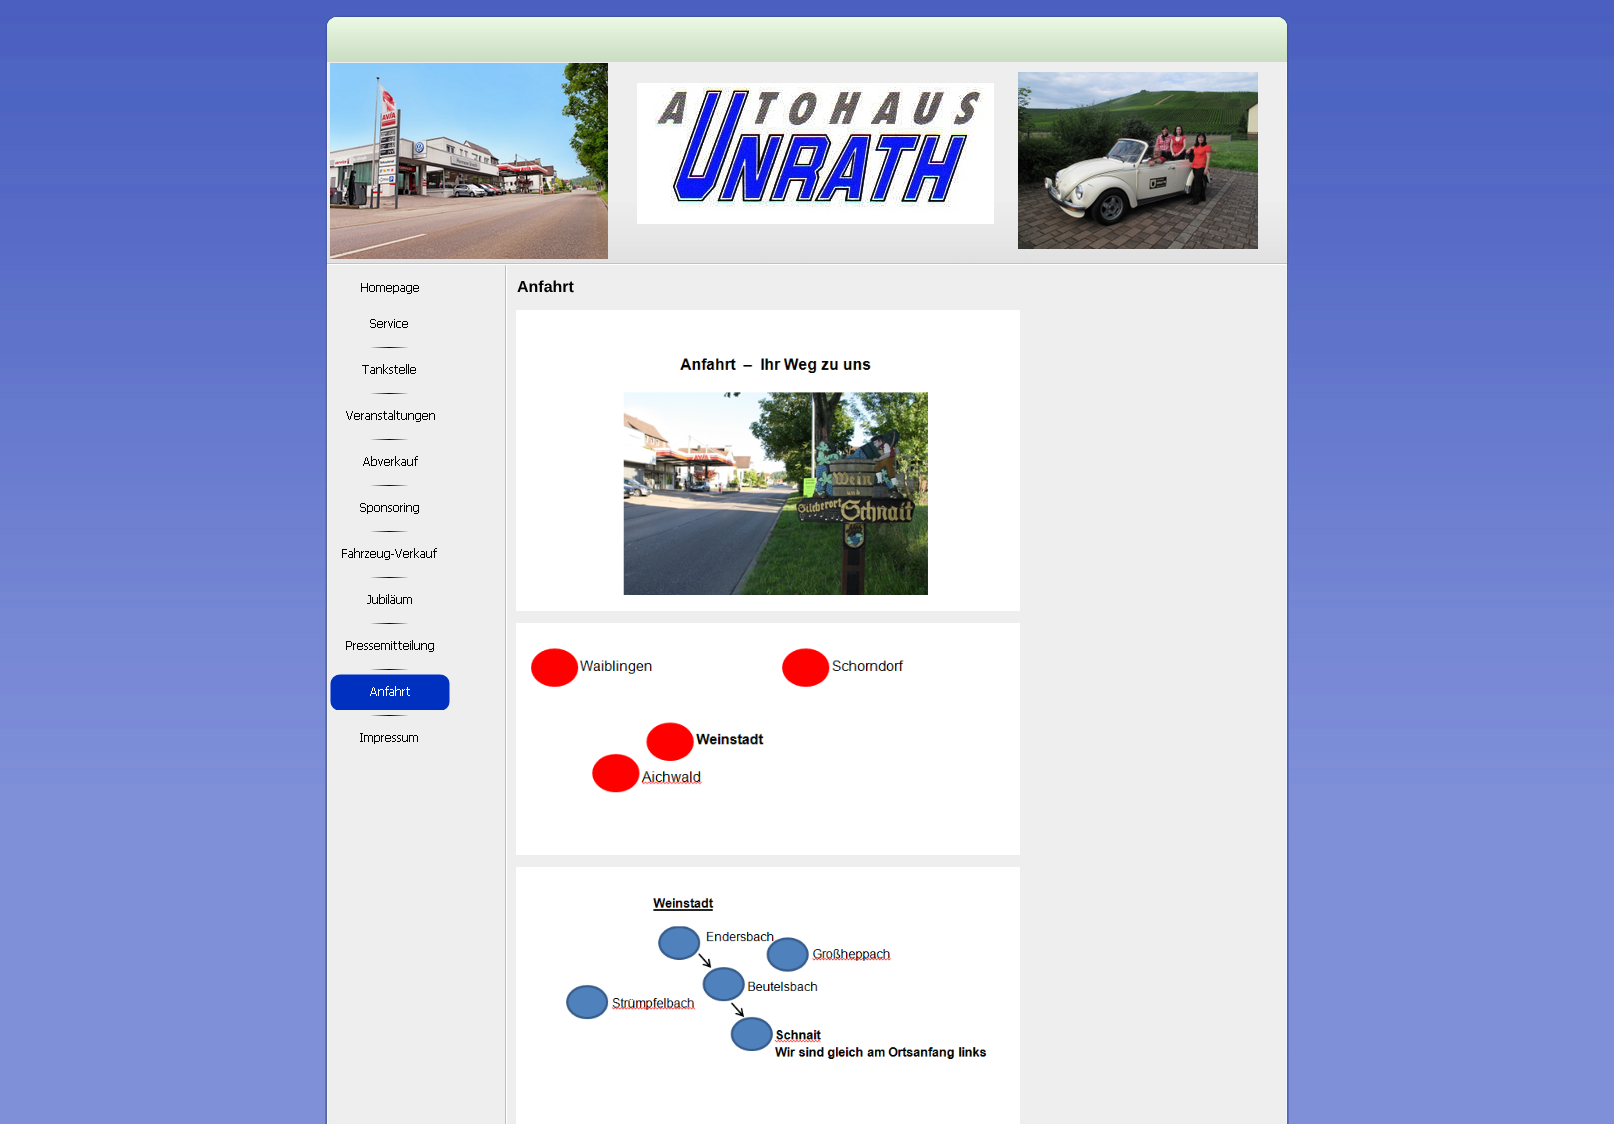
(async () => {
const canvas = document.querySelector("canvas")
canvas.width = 1614
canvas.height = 1124
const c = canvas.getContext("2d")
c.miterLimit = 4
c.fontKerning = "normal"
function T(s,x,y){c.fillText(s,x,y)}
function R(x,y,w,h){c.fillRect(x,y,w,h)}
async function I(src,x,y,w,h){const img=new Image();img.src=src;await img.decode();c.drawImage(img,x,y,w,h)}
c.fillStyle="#fff"
R(0,0,1614,1124)
await I("1.png",0,0,1614,1124)
await I("2.png",325,15,964,250)
await I("3.png",325,265,130,859)
await I("4.png",455,265,834,859)
await I("5.png",361,283,58,11)
await I("6.png",370,319,38,9)
await I("7.png",370,347,39,1)
await I("8.png",362,364,54,10)
await I("7.png",370,393,39,1)
await I("9.png",346,410,89,12)
await I("7.png",370,439,39,1)
await I("10.png",363,456,55,10)
await I("7.png",370,485,39,1)
await I("11.png",360,503,59,11)
await I("7.png",370,531,39,1)
await I("12.png",342,548,95,12)
await I("7.png",370,577,39,1)
await I("13.png",367,594,45,10)
await I("7.png",370,623,39,1)
await I("14.png",346,640,88,12)
await I("7.png",370,669,39,1)
await I("15.png",330,674,120,36)
await I("7.png",370,715,39,1)
await I("16.png",360,733,58,11)
c.font="bold 16px Liberation Sans"
c.fillStyle="#000"
T("Anfahrt",517,292)
await I("17.png",516,310,504,301)
await I("18.png",516,623,504,232)
await I("19.png",516,867,504,257)
})()
